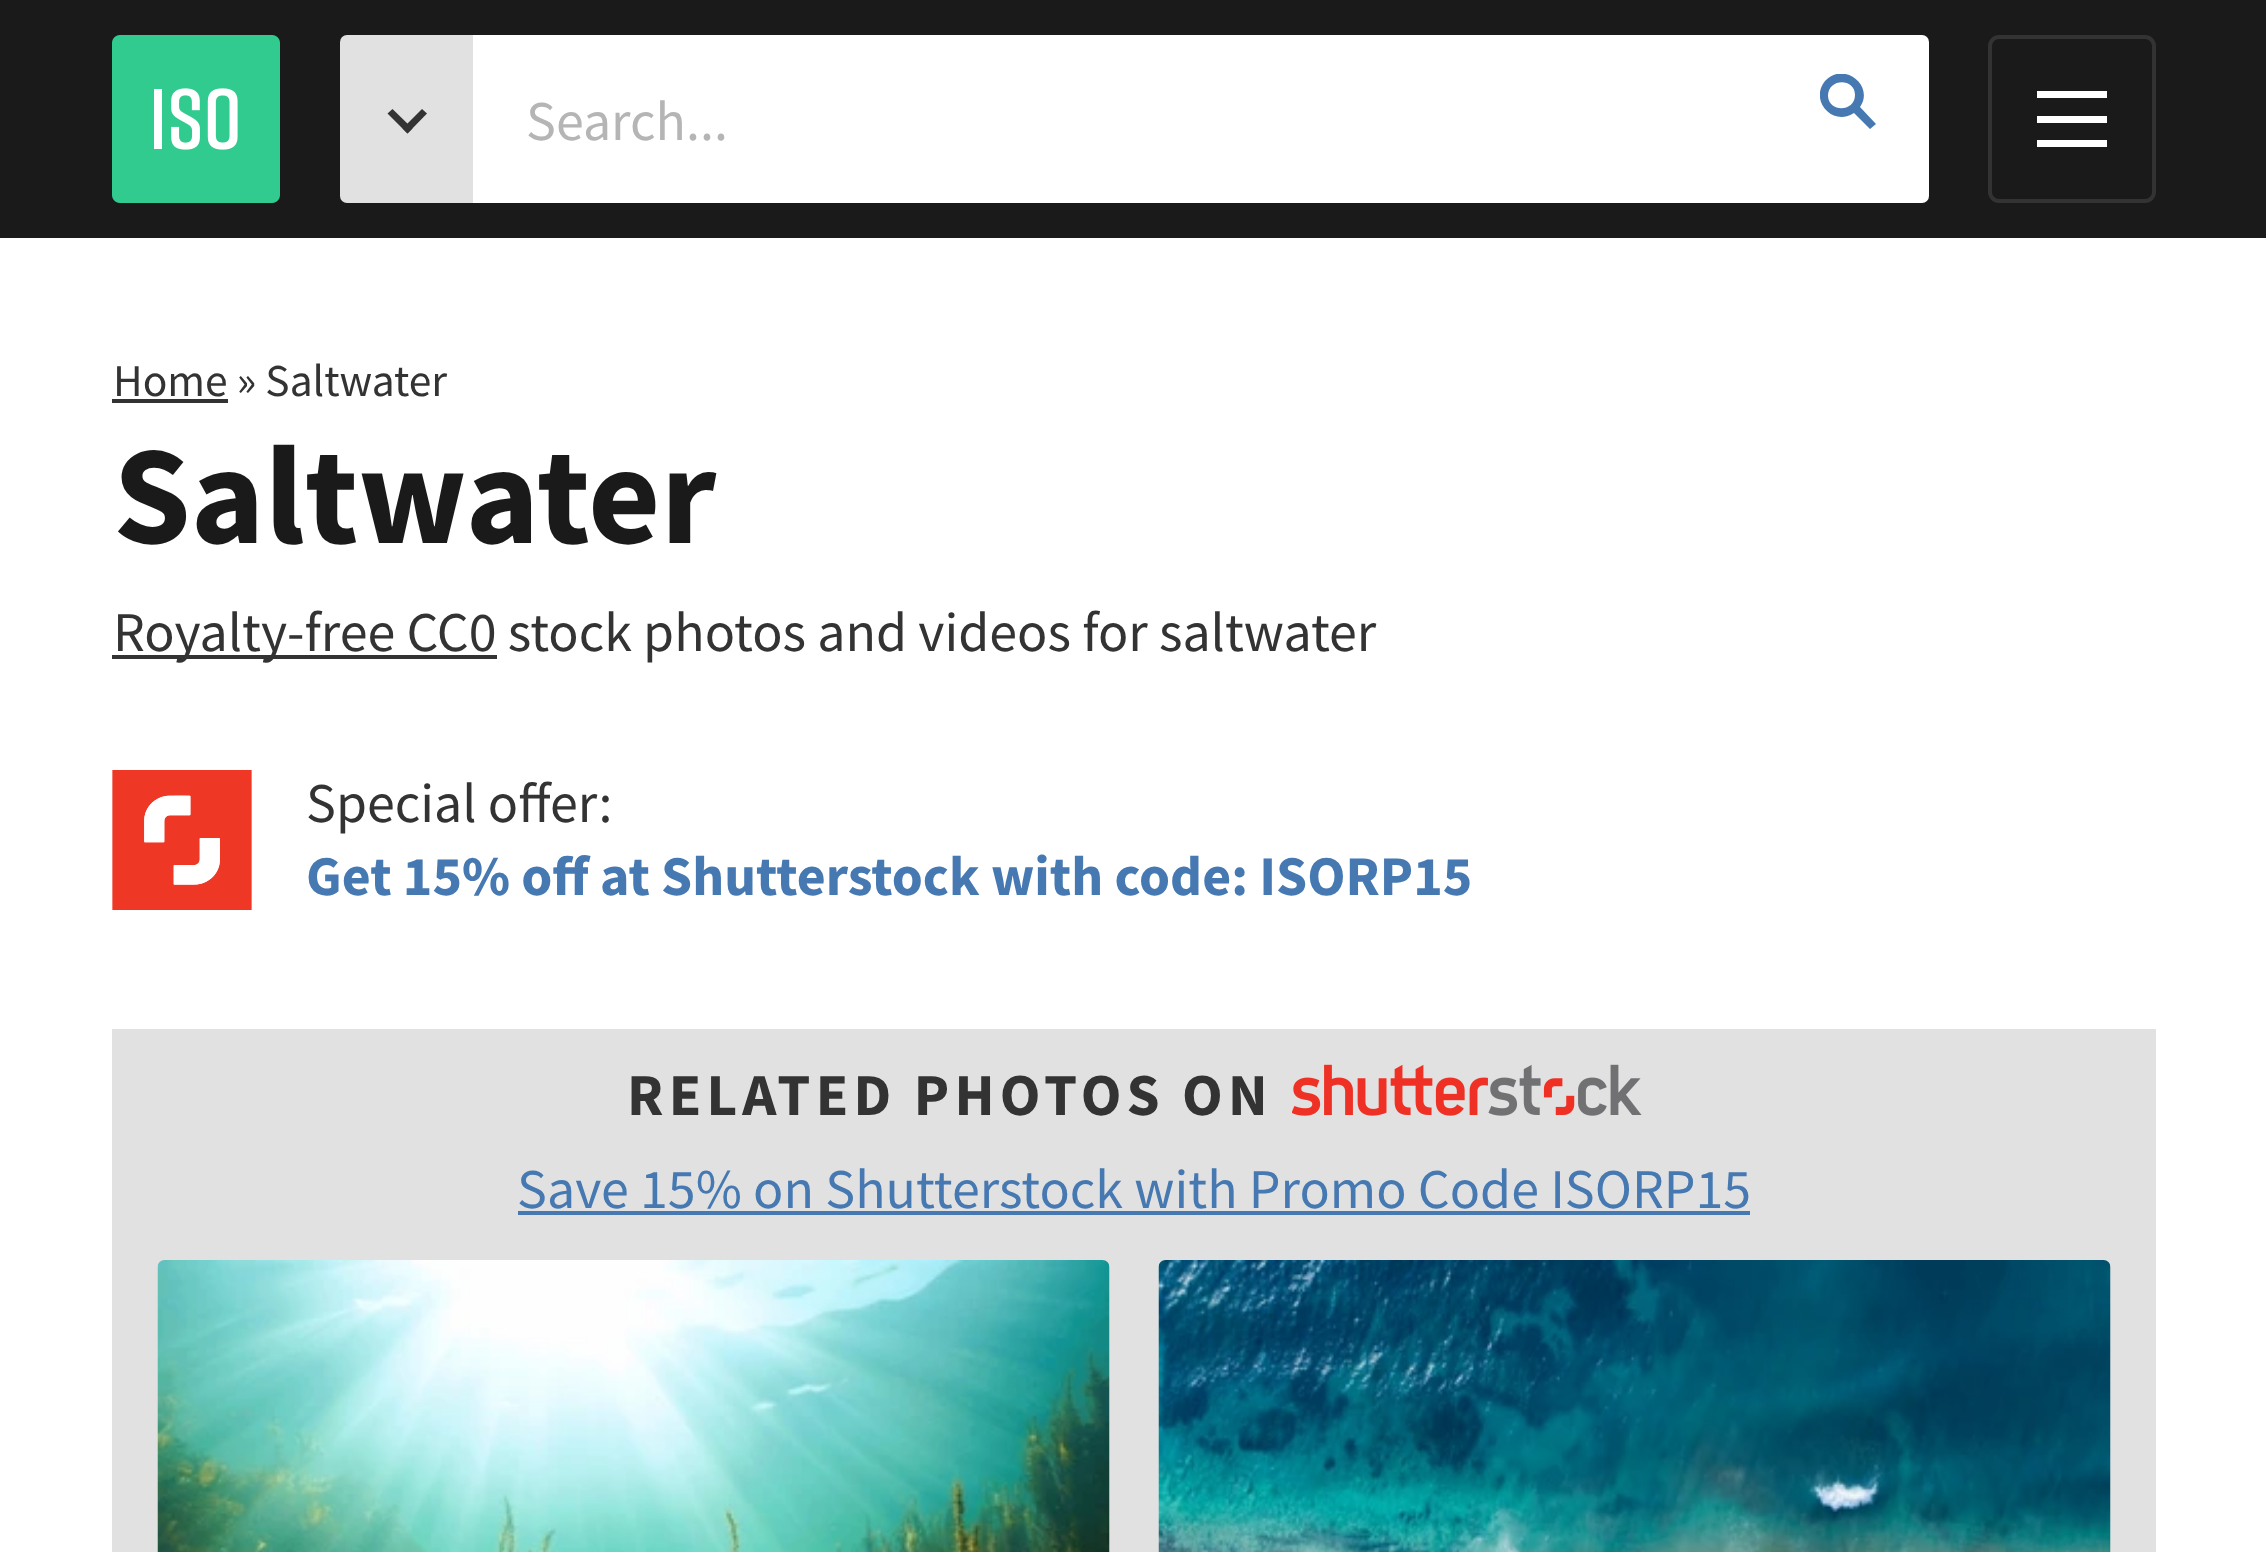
(async () => {
const canvas = document.querySelector("canvas")
canvas.width = 2266
canvas.height = 1552
const c = canvas.getContext("2d")
c.miterLimit = 4
c.fontKerning = "normal"
function T(s,x,y){c.fillText(s,x,y)}
function R(x,y,w,h){c.fillRect(x,y,w,h)}
async function I(src,x,y,w,h){const img=new Image();img.src=src;await img.decode();c.drawImage(img,x,y,w,h)}
let path
c.fillStyle="#fff"
R(0,0,2266,1552)
c.fillStyle="#1a1a1a"
R(0,0,2266,238)
await I("1.png",112,35,168,168)
c.fillStyle="#e1e1e1"
c.beginPath()
c.roundRect(340,35,133,168,[7,0,0,7])
c.fill()
c.fillStyle="#333"
path = new Path2D("M427 113.5l-19.5 20l-5-5l19.5-19.5z")
c.fill(path)
path = new Path2D("M412.5 128.5l-5 5l-20-20l5-4.5z")
c.fill(path)
c.fillStyle="#fff"
R(473,35,1295,168)
c.font="56px Source Sans Pro"
c.fillStyle="#b5b5b5"
T("Search...",526,140)
c.fillStyle="#fff"
c.beginPath()
c.roundRect(1768,35,161,168,[0,7,7,0])
c.fill()
c.save()
c.beginPath()
c.rect(1820,74,56,56)
c.clip()
c.fillStyle="#4679b2"
path = new Path2D("M1860 107c15-22-17-46-35-26c-16 20 8 46 29 32l16 16l6-5zm-5-12c0 17-26 18-27 1c0-18 27-18 27-1z")
c.fill(path)
c.restore()
c.beginPath()
c.roundRect(1990,37,164,164,9)
c.strokeStyle="#333"
c.lineWidth=4
c.stroke()
R(2037,116,70,7)
R(2037,91,70,7)
R(2037,140,70,7)
c.font="45.5px Source Sans Pro"
c.fillStyle="#333"
T("Home » Saltwater",113,396)
R(112,399,116,4)
c.font="bold 140px Source Sans Pro"
c.fillStyle="#1a1a1a"
T("Saltwater",113,543)
c.fillStyle="#333"
R(112,655,385,4)
c.font="56px Source Sans Pro"
T("Royalty-free CC0 stock photos and videos for saltwater",113,651)
await I("2.png",112,770,140,140)
T("Special offer:",306,822)
c.font="bold 56px Source Sans Pro"
c.fillStyle="#4679b2"
T("Get 15% off at Shutterstock with code: ISORP15",306,895)
c.fillStyle="#e1e1e1"
R(112,1029,2044,523)
c.letterSpacing="5.25px"
c.font="bold 59.5px Source Sans Pro"
c.fillStyle="#333"
T("RELATED PHOTOS ON",627,1115)
await I("3.png",1292,1064,350,52)
c.letterSpacing="0px"
c.font="56px Source Sans Pro"
c.fillStyle="#4679b2"
T("Save 15% on Shutterstock with Promo Code ISORP15",517,1208)
R(518,1211,1232,4)
await I("4.png",157,1260,953,292)
await I("5.png",1158,1260,953,292)
})()
